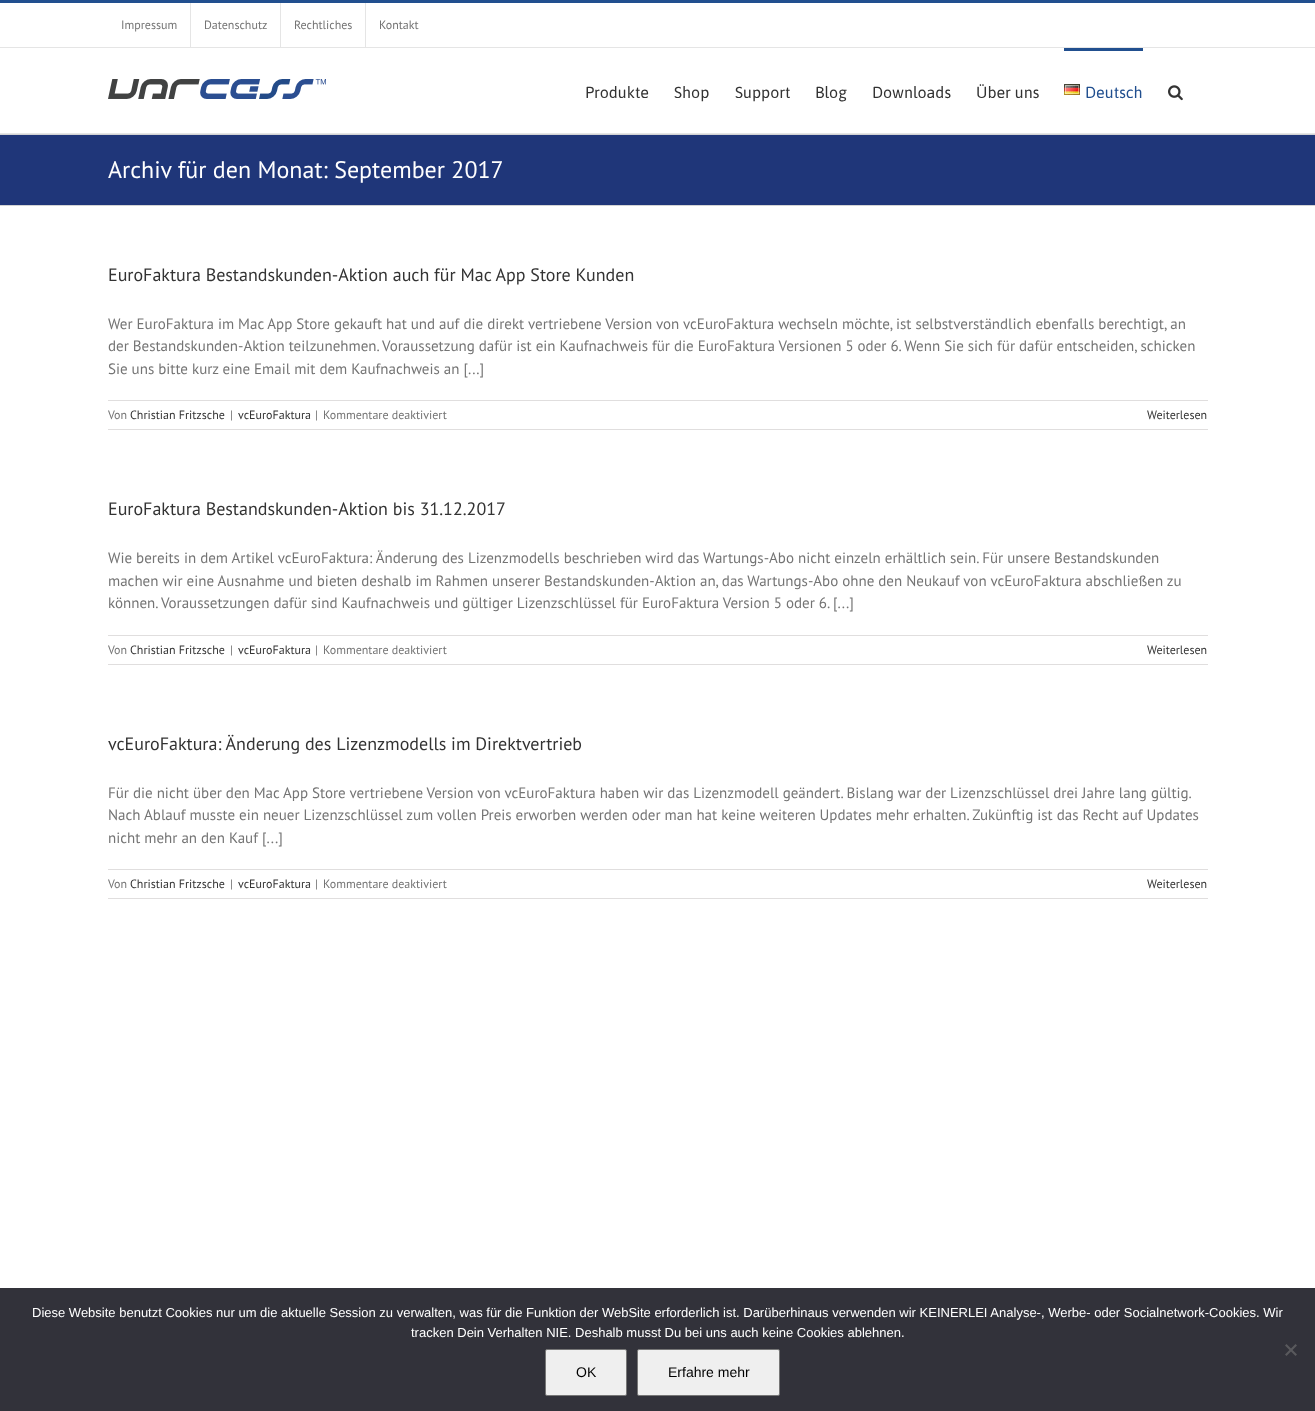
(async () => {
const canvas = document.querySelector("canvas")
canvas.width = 1315
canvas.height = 1411
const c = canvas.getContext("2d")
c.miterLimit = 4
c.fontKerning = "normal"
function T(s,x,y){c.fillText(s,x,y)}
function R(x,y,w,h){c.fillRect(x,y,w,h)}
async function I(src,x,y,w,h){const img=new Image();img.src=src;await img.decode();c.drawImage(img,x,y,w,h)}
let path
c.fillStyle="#fff"
R(0,0,1315,1411)
c.fillStyle="#214f8f"
R(0,0,1315,3)
c.fillStyle="#e5e5e5"
R(0,47,1315,1)
c.font="12px PT Sans"
c.fillStyle="#747474"
T("Impressum",121,29)
c.fillStyle="#e5e5e5"
R(190,3,1,44)
c.fillStyle="#747474"
T("Datenschutz",204,29)
c.fillStyle="#e5e5e5"
R(280,3,1,44)
c.fillStyle="#747474"
T("Rechtliches",294,29)
c.fillStyle="#e5e5e5"
R(365,3,1,44)
c.fillStyle="#747474"
T("Kontakt",379,29)
c.fillStyle="#e5e5e5"
R(0,133,1315,1)
await I("1.png",108,79,218,20)
c.font="16px Asap"
c.fillStyle="#333"
T("Produkte",585,98)
T("Shop",674,98)
T("Support",735,98)
T("Blog",815,98)
T("Downloads",872,98)
T("Über uns",976,98)
c.fillStyle="#214f8f"
R(1064,48,79,3)
await I("2.png",1064,84,16,11)
T("Deutsch",1085,98)
await I("3.png",1168,85,15,16)
c.fillStyle="#1f3679"
R(0,135,1315,70)
c.fillStyle="#d2d3d4"
R(0,134,1315,1)
R(0,205,1315,1)
c.font="24px PT Sans"
c.fillStyle="#fff"
T("Archiv für den Monat: September 2017",108,178)
c.font="18px PT Sans"
c.fillStyle="#333"
T("EuroFaktura Bestandskunden-Aktion auch für Mac App Store Kunden",108,281)
c.font="15px PT Sans"
c.fillStyle="#747474"
T("Wer EuroFaktura im Mac App Store gekauft hat und auf die direkt vertriebene Version von vcEuroFaktura wechseln möchte, ist selbstverständlich ebenfalls berechtigt, an",108,329)
T("der Bestandskunden-Aktion teilzunehmen. Voraussetzung dafür ist ein Kaufnachweis für die EuroFaktura Versionen 5 oder 6. Wenn Sie sich für dafür entscheiden, schicken",108,351)
T("Sie uns bitte kurz eine Email mit dem Kaufnachweis an [...]",108,374)
c.fillStyle="#e0dede"
R(108,400,1100,1)
R(108,429,1100,1)
c.font="12px PT Sans"
c.fillStyle="#747474"
T("Von",108,419)
c.fillStyle="#333"
T("Christian Fritzsche",130,419)
c.fillStyle="#747474"
T("|",230,419)
c.fillStyle="#333"
T("vcEuroFaktura",238,419)
c.fillStyle="#747474"
T("|",315,419)
T("Kommentare deaktiviert",323,419)
c.fillStyle="#333"
T("Weiterlesen",1147,419)
c.font="18px PT Sans"
T("EuroFaktura Bestandskunden-Aktion bis 31.12.2017",108,515)
c.font="15px PT Sans"
c.fillStyle="#747474"
T("Wie bereits in dem Artikel vcEuroFaktura: Änderung des Lizenzmodells beschrieben wird das Wartungs-Abo nicht einzeln erhältlich sein. Für unsere Bestandskunden",108,563)
T("machen wir eine Ausnahme und bieten deshalb im Rahmen unserer Bestandskunden-Aktion an, das Wartungs-Abo ohne den Neukauf von vcEuroFaktura abschließen zu",108,586)
T("können. Voraussetzungen dafür sind Kaufnachweis und gültiger Lizenzschlüssel für EuroFaktura Version 5 oder 6. [...]",108,608)
c.fillStyle="#e0dede"
R(108,635,1100,1)
R(108,664,1100,1)
c.font="12px PT Sans"
c.fillStyle="#747474"
T("Von",108,654)
c.fillStyle="#333"
T("Christian Fritzsche",130,654)
c.fillStyle="#747474"
T("|",230,654)
c.fillStyle="#333"
T("vcEuroFaktura",238,654)
c.fillStyle="#747474"
T("|",315,654)
T("Kommentare deaktiviert",323,654)
c.fillStyle="#333"
T("Weiterlesen",1147,654)
c.font="18px PT Sans"
T("vcEuroFaktura: Änderung des Lizenzmodells im Direktvertrieb",108,750)
c.font="15px PT Sans"
c.fillStyle="#747474"
T("Für die nicht über den Mac App Store vertriebene Version von vcEuroFaktura haben wir das Lizenzmodell geändert. Bislang war der Lizenzschlüssel drei Jahre lang gültig.",108,798)
T("Nach Ablauf musste ein neuer Lizenzschlüssel zum vollen Preis erworben werden oder man hat keine weiteren Updates mehr erhalten. Zukünftig ist das Recht auf Updates",108,820)
T("nicht mehr an den Kauf [...]",108,843)
c.fillStyle="#e0dede"
R(108,869,1100,1)
R(108,898,1100,1)
c.font="12px PT Sans"
c.fillStyle="#747474"
T("Von",108,888)
c.fillStyle="#333"
T("Christian Fritzsche",130,888)
c.fillStyle="#747474"
T("|",230,888)
c.fillStyle="#333"
T("vcEuroFaktura",238,888)
c.fillStyle="#747474"
T("|",315,888)
T("Kommentare deaktiviert",323,888)
c.fillStyle="#333"
T("Weiterlesen",1147,888)
c.fillStyle="#32323a"
R(0,1288,1315,123)
c.font="13px Liberation Sans"
c.fillStyle="#fff"
T("Diese Website benutzt Cookies nur um die aktuelle Session zu verwalten, was für die Funktion der WebSite erforderlich ist. Darüberhinaus verwenden wir KEINERLEI Analyse-, Werbe- oder Socialnetwork-Cookies. Wir",32,1317)
T("tracken Dein Verhalten NIE. Deshalb musst Du bei uns auch keine Cookies ablehnen.",411,1337)
c.fillStyle="#59595d"
path = new Path2D("M1295.5 1344l1.5 1.5l-10.5 10.5l-1.5-1.5z")
c.fill(path)
path = new Path2D("M1285 1345.5l1.5-1.5l10.5 10.5l-1.5 1.5z")
c.fill(path)
c.fillStyle="#efefef"
c.beginPath()
c.roundRect(545.5,1349.5,81,46,1.5)
c.fill()
c.strokeStyle="#767676"
c.stroke()
c.font="14px Liberation Sans"
c.fillStyle="#000"
T("OK",576,1377)
c.fillStyle="#efefef"
c.beginPath()
c.roundRect(637.5,1349.5,142,46,1.5)
c.fill()
c.stroke()
c.fillStyle="#000"
T("Erfahre mehr",668,1377)
})()
